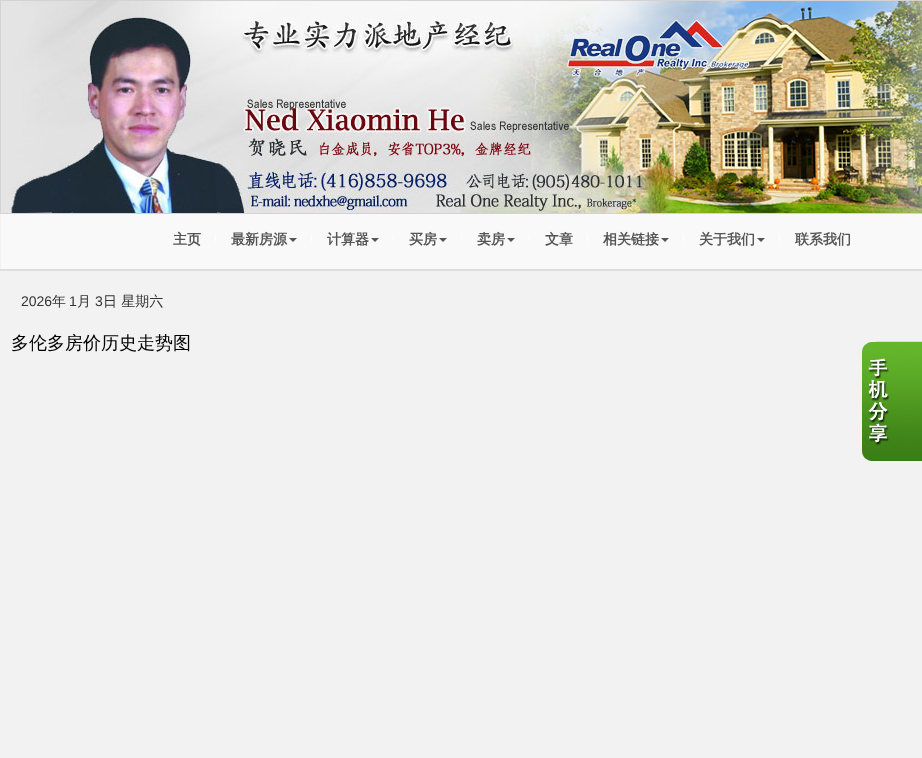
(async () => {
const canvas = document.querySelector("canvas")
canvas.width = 922
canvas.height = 758
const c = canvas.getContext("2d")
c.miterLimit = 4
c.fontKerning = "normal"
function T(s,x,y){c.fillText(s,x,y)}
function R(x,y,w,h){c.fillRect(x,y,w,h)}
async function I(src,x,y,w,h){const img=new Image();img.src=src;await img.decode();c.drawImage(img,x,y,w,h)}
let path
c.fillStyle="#f2f2f2"
R(0,0,922,758)
c.fillStyle="#e4e4e4"
R(1,1,10,212)
c.fillStyle="#d6d2d2"
R(0,0,922,1)
R(0,213,922,1)
R(0,0,1,214)
await I("1.png",11,1,911,212)
c.fillStyle="#f9f9f9"
R(1,214,921,55)
c.fillStyle="#dedede"
R(0,269,922,2)
await I("2.png",215,234,1,8)
c.font="bold 14px WenQuanYi Zen Hei"
c.fillStyle="#555"
T("主页",173,244)
await I("2.png",311,234,1,8)
T("最新房源",231,244)
path = new Path2D("M289 238h8l-4 4z")
c.fill(path)
await I("2.png",393,234,1,8)
T("计算器",327,244)
path = new Path2D("M371 238h8l-4 4z")
c.fill(path)
await I("2.png",461,234,1,8)
T("买房",409,244)
path = new Path2D("M439 238h8l-4 4z")
c.fill(path)
await I("2.png",529,234,1,8)
T("卖房",477,244)
path = new Path2D("M507 238h8l-4 4z")
c.fill(path)
await I("2.png",587,234,1,8)
T("文章",545,244)
await I("2.png",683,234,1,8)
T("相关链接",603,244)
path = new Path2D("M661 238h8l-4 4z")
c.fill(path)
await I("2.png",779,234,1,8)
T("关于我们",699,244)
path = new Path2D("M757 238h8l-4 4z")
c.fill(path)
T("联系我们",795,244)
c.font="14px Liberation Sans"
c.fillStyle="#333"
T("2026",21,306)
c.font="500 14px WenQuanYi Zen Hei"
T("年",52,306)
c.font="14px Liberation Sans"
T("1",69,306)
c.font="500 14px WenQuanYi Zen Hei"
T("月",77,306)
c.font="14px Liberation Sans"
T("3",95,306)
c.font="500 14px WenQuanYi Zen Hei"
T("日 星期六",103,306)
c.font="500 18px WenQuanYi Zen Hei"
c.fillStyle="#000"
T("多伦多房价历史走势图",11,349)
await I("3.png",862,341,60,120)
})()
